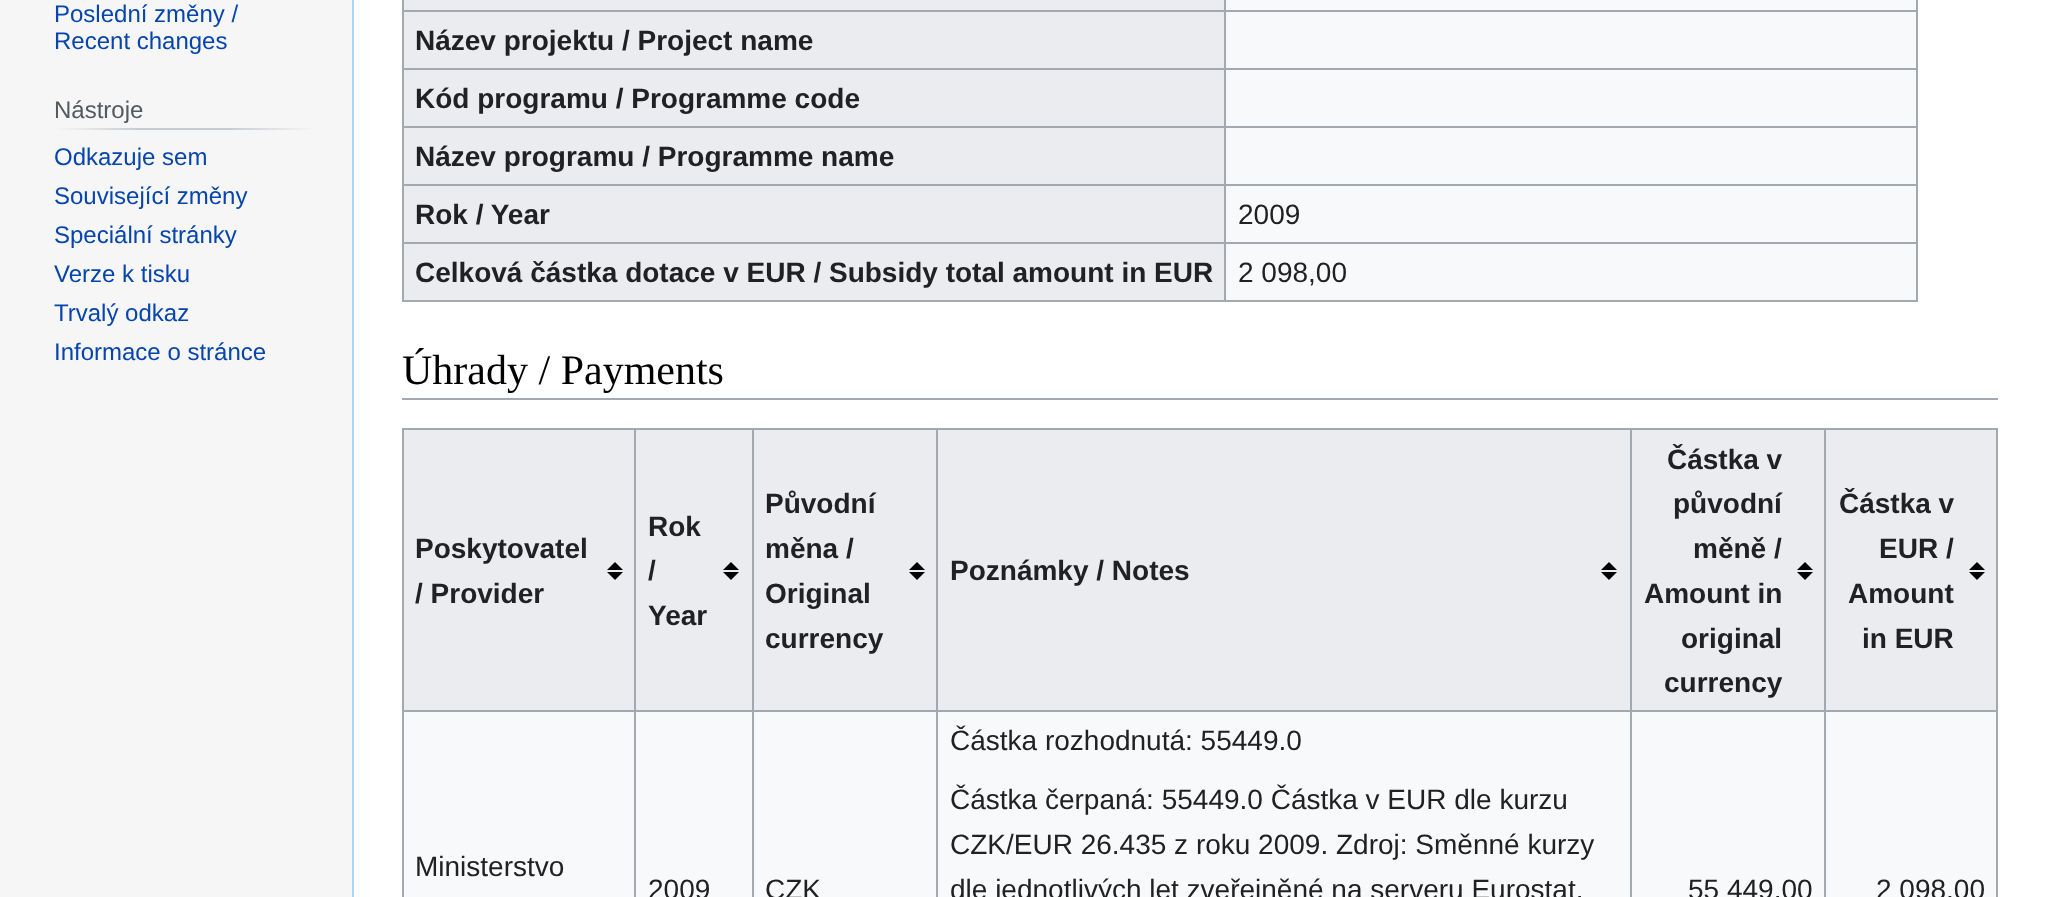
(async () => {
const canvas = document.querySelector("canvas")
canvas.width = 2045
canvas.height = 897
const c = canvas.getContext("2d")
c.miterLimit = 4
c.fontKerning = "normal"
function T(s,x,y){c.fillText(s,x,y)}
function R(x,y,w,h){c.fillRect(x,y,w,h)}
let gradient, path
c.fillStyle="#f6f6f6"
R(0,0,2045,897)
c.font="24px Liberation Sans"
c.fillStyle="#0645ad"
T("Poslední změny /",54,22)
T("Recent changes",54,49)
gradient = c.createLinearGradient(54,129,316,129)
gradient.addColorStop(0,"#f6f6f6")
gradient.addColorStop(.33,"#c8ccd1")
gradient.addColorStop(.66,"#c8ccd1")
gradient.addColorStop(1,"#f6f6f6")
c.fillStyle = gradient
R(54,128,262,2)
c.fillStyle="#54595d"
T("Nástroje",54,118)
c.fillStyle="#0645ad"
T("Odkazuje sem",54,165)
T("Související změny",54,204)
T("Speciální stránky",54,243)
T("Verze k tisku",54,282)
T("Trvalý odkaz",54,321)
T("Informace o stránce",54,360)
c.fillStyle="#fff"
R(354,0,1691,897)
c.fillStyle="#a7d7f9"
R(352,0,2,897)
c.fillStyle="#f8f9fa"
R(1226,0,690,300)
c.fillStyle="#a2a9b1"
R(1916,0,2,302)
R(402,300,1516,2)
R(402,0,2,302)
c.fillStyle="#eaecf0"
R(404,0,820,10)
c.fillStyle="#a2a9b1"
R(1224,10,694,2)
R(1224,68,694,2)
R(1224,126,694,2)
R(1224,184,694,2)
R(1224,242,694,2)
R(1224,242,2,60)
R(402,242,824,2)
R(1224,184,2,60)
R(402,184,824,2)
R(1224,126,2,60)
R(402,126,824,2)
R(1224,68,2,60)
R(402,68,824,2)
R(1224,10,2,60)
R(402,10,824,2)
R(1224,0,2,12)
c.fillStyle="#eaecf0"
R(404,12,820,56)
c.font="bold 28px Liberation Sans"
c.fillStyle="#202122"
T("Název projektu / Project name",415,50)
c.fillStyle="#eaecf0"
R(404,70,820,56)
c.fillStyle="#202122"
T("Kód programu / Programme code",415,108)
c.fillStyle="#eaecf0"
R(404,128,820,56)
c.fillStyle="#202122"
T("Název programu / Programme name",415,166)
c.fillStyle="#eaecf0"
R(404,186,820,56)
c.fillStyle="#202122"
T("Rok / Year",415,224)
c.font="28px Liberation Sans"
T("2009",1238,224)
c.fillStyle="#eaecf0"
R(404,244,820,56)
c.font="bold 28px Liberation Sans"
c.fillStyle="#202122"
T("Celková částka dotace v EUR / Subsidy total amount in EUR",415,282)
c.font="28px Liberation Sans"
T("2 098,00",1238,282)
c.fillStyle="#a2a9b1"
R(402,398,1596,2)
c.font="42px Liberation Serif"
c.fillStyle="#000"
T("Úhrady / Payments",402,384)
c.fillStyle="#f8f9fa"
R(404,712,1592,185)
c.fillStyle="#a2a9b1"
R(402,428,1596,2)
R(1996,428,2,469)
R(402,428,2,469)
c.fillStyle="#eaecf0"
R(404,430,230,280)
c.fillStyle="#000"
path = new Path2D("M623 572l-8 8l-8-8zm0-2l-8-8l-8 8z")
c.fill(path)
c.font="bold 28px Liberation Sans"
c.fillStyle="#202122"
T("Poskytovatel",415,558)
T("/ Provider",415,603)
c.fillStyle="#eaecf0"
R(636,430,116,280)
c.fillStyle="#000"
path = new Path2D("M739 572l-8 8l-8-8zm0-2l-8-8l-8 8z")
c.fill(path)
c.fillStyle="#a2a9b1"
R(1824,710,174,2)
R(1824,710,2,187)
R(1630,710,196,2)
R(1630,710,2,187)
R(936,710,696,2)
R(936,710,2,187)
R(752,710,186,2)
R(752,710,2,187)
R(634,710,120,2)
R(634,710,2,187)
R(402,710,234,2)
R(634,428,2,284)
c.fillStyle="#202122"
T("Rok",648,536)
T("/",648,580)
T("Year",648,625)
c.fillStyle="#eaecf0"
R(754,430,182,280)
c.fillStyle="#000"
path = new Path2D("M925 572l-8 8l-8-8zm0-2l-8-8l-8 8z")
c.fill(path)
c.fillStyle="#a2a9b1"
R(752,428,2,284)
c.fillStyle="#202122"
T("Původní",765,513)
T("měna /",765,558)
T("Original",765,603)
T("currency",765,648)
c.fillStyle="#eaecf0"
R(938,430,692,280)
c.fillStyle="#000"
path = new Path2D("M1617 572l-8 8l-8-8zm0-2l-8-8l-8 8z")
c.fill(path)
c.fillStyle="#a2a9b1"
R(936,428,2,284)
c.fillStyle="#202122"
T("Poznámky / Notes",950,580)
c.fillStyle="#eaecf0"
R(1632,430,192,280)
c.fillStyle="#000"
path = new Path2D("M1813 572l-8 8l-8-8zm0-2l-8-8l-8 8z")
c.fill(path)
c.fillStyle="#a2a9b1"
R(1630,428,2,284)
c.fillStyle="#202122"
T("Částka v",1667,469)
T("původní",1673,513)
T("měně /",1693,558)
T("Amount in",1644,603)
T("original",1681,648)
T("currency",1664,692)
c.fillStyle="#eaecf0"
R(1826,430,170,280)
c.fillStyle="#000"
path = new Path2D("M1985 572l-8 8l-8-8zm0-2l-8-8l-8 8z")
c.fill(path)
c.fillStyle="#a2a9b1"
R(1824,428,2,284)
c.fillStyle="#202122"
T("Částka v",1839,513)
T("EUR /",1879,558)
T("Amount",1848,603)
T("in EUR",1862,648)
c.font="28px Liberation Sans"
T("Ministerstvo",415,876)
T("Částka rozhodnutá: 55449.0",950,750)
T("Částka čerpaná: 55449.0 Částka v EUR dle kurzu",950,809)
T("CZK/EUR 26.435 z roku 2009. Zdroj: Směnné kurzy",950,854)
T("dle jednotlivých let zveřejněné na serveru Eurostat.",950,899)
T("2009",648,899)
T("CZK",765,899)
T("55 449,00",1688,899)
T("2 098,00",1876,899)
})()
